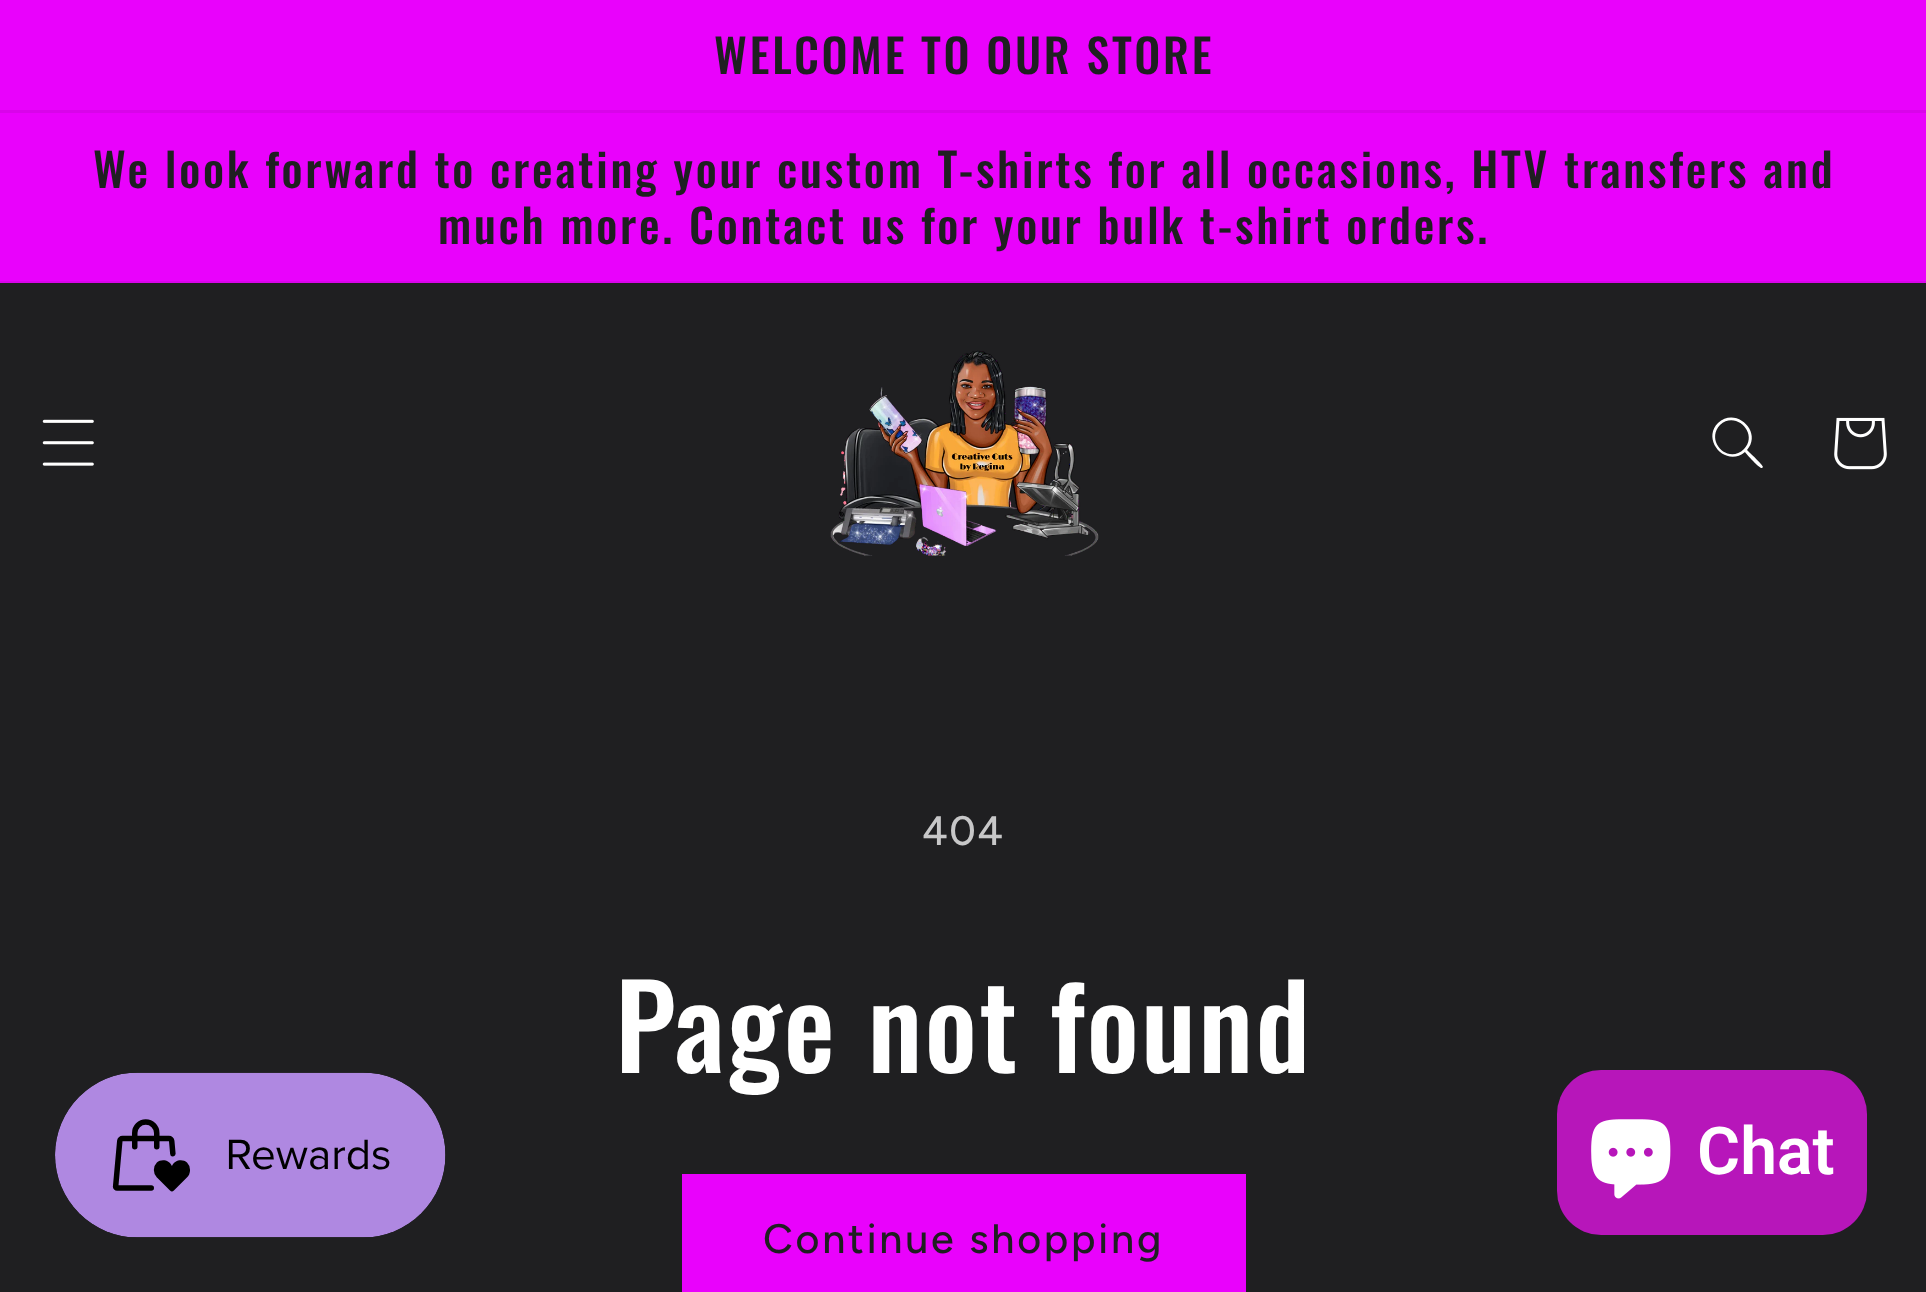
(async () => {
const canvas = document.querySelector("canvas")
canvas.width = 1926
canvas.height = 1292
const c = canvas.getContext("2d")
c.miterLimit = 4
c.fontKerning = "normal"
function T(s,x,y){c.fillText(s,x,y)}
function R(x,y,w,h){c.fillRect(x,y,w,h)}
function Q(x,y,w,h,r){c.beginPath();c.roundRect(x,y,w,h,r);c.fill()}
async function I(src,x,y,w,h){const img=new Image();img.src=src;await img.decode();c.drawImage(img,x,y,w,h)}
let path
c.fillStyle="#1f1f21"
R(0,0,1926,1292)
c.fillStyle="#e902fc"
R(0,0,1926,110)
c.fillStyle="#d904ea"
R(0,110,1926,3)
c.letterSpacing="2.75px"
c.font="500 46.2px Oswald"
c.fillStyle="#1f1f21"
T("WELCOME TO OUR STORE",714,74)
c.fillStyle="#e902fc"
R(0,113,1926,168)
c.fillStyle="#d904ea"
R(0,281,1926,2)
c.wordSpacing="-0.1px"
c.fillStyle="#1f1f21"
T("We look forward to creating your custom T-shirts for all occasions, HTV transfers and",93,188)
c.wordSpacing="0px"
T("much more. Contact us for",438,244)
T("your bulk t-shirt orders.",994,244)
await I("1.png",42,419,52,47)
await I("2.png",830,350,269,206)
c.fillStyle="#fff"
path = new Path2D("M1744 449c-16 16-39-8-24-24c16-15 39 9 24 24zm1 3c-19 16-44-12-27-29c18-17 45 9 29 27c2 2 16 15 16 17l-1 1c-2 1-15-13-17-16z")
c.fill(path,"evenodd")
await I("3.png",1834,417,53,53)
await I("4.png",55,1072,391,166)
c.letterSpacing="1.5px"
c.font="500 41.25px Figtree"
c.fillStyle="#c7c7c8"
T("404",922,845)
c.letterSpacing="2.25px"
c.font="500 115.5px Oswald"
c.fillStyle="#fff"
T("Page not found",615,1073)
c.fillStyle="#e902fc"
R(682,1174,564,118)
c.letterSpacing="2.75px"
c.font="500 41.25px Figtree"
c.fillStyle="#1f1f21"
T("Continue shopping",763,1253)
c.fillStyle="#b716ba"
Q(1557,1070,310,165,44)
await I("5.png",1591,1119,80,80)
c.letterSpacing="0px"
c.font="600 66px Roboto"
c.fillStyle="#fff"
T("Chat",1697,1174)
})()
